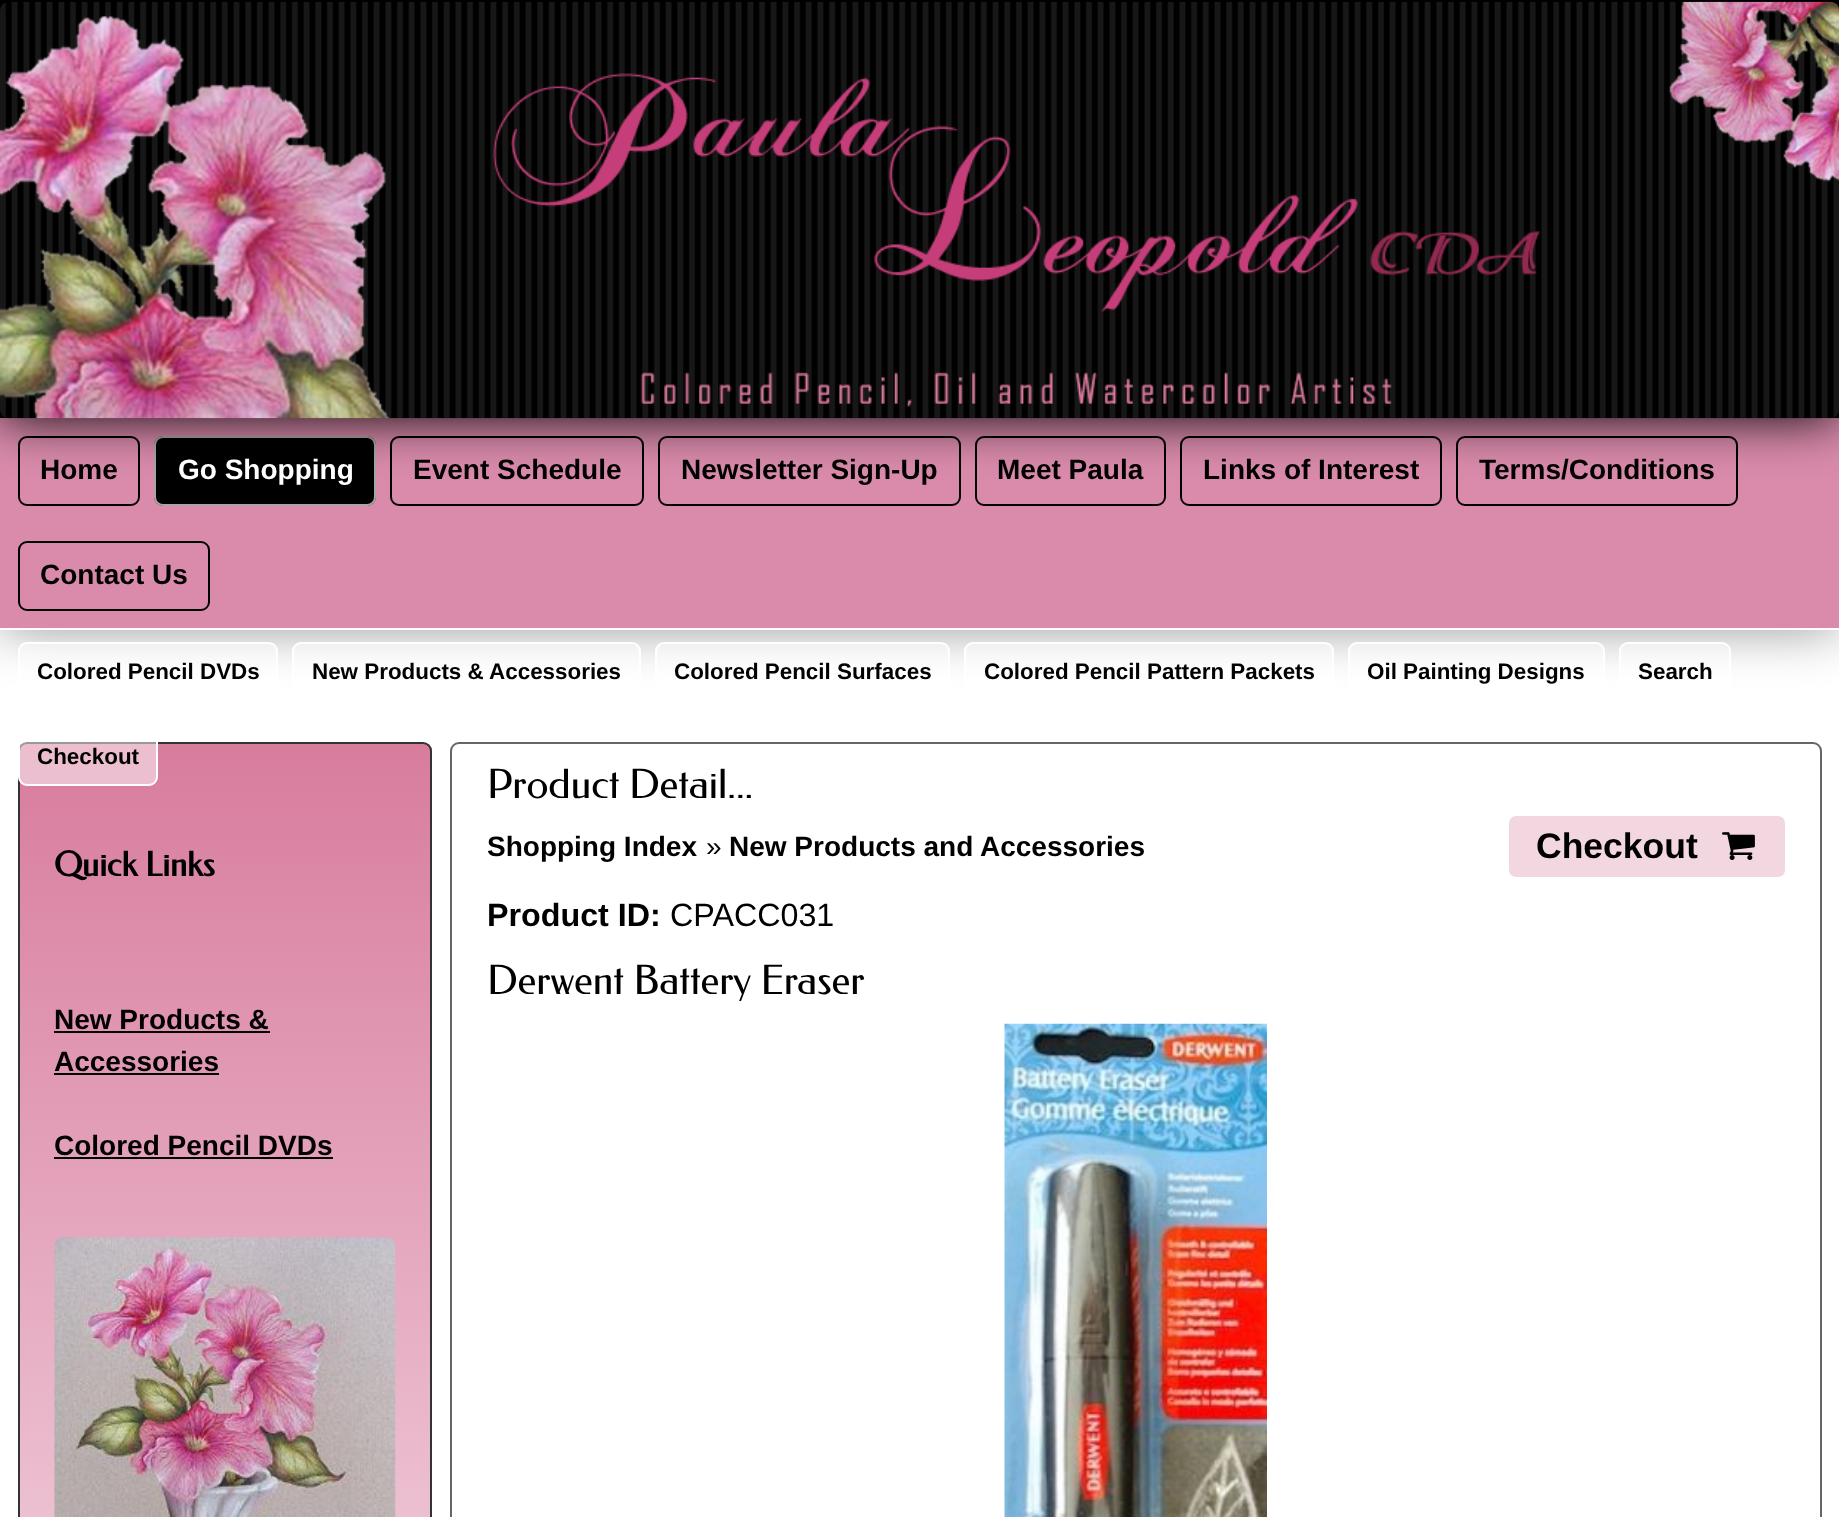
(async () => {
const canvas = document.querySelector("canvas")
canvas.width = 1839
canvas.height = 1517
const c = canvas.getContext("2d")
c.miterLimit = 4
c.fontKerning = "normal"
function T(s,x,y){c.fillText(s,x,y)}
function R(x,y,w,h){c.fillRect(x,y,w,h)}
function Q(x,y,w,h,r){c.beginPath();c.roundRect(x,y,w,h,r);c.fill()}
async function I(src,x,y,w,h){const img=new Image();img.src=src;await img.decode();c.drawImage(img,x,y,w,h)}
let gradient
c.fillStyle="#fff"
R(0,0,1839,1517)
c.fillStyle="#999"
c.filter="blur(26px)"
c.beginPath()
c.rect(0,418,1839,212)
c.fill()
c.filter="none"
c.fillStyle="#da8bac"
R(0,418,1839,210)
c.fillStyle="#000"
Q(154,436,222,70,9)
c.beginPath()
c.roundRect(155,437,220,68,8)
c.strokeStyle="#ffffffa6"
c.lineWidth=2
c.stroke()
c.beginPath()
c.roundRect(19,437,120,68,8)
c.strokeStyle="#000"
c.stroke()
c.beginPath()
c.roundRect(391,437,252,68,8)
c.stroke()
c.beginPath()
c.roundRect(659,437,301,68,8)
c.stroke()
c.beginPath()
c.roundRect(976,437,189,68,8)
c.stroke()
c.beginPath()
c.roundRect(1181,437,260,68,8)
c.stroke()
c.beginPath()
c.roundRect(1457,437,280,68,8)
c.stroke()
c.filter="blur(26px)"
c.beginPath()
c.rect(0,0,1839,418)
c.fill()
c.filter="none"
R(0,0,1839,418)
await I("1.png",0,1,1839,418)
c.fillStyle="#fff"
R(0,628,1839,2)
c.font="bold 28px Liberation Sans"
T("Go Shopping",178,479)
c.fillStyle="#ffffff80"
c.beginPath()
c.roundRect(19,643,258,56,8)
c.fill()
c.strokeStyle="#fff"
c.stroke()
c.font="bold 22.4px Liberation Sans"
c.fillStyle="#000"
T("Colored Pencil DVDs",37,679)
c.fillStyle="#ffffff80"
c.beginPath()
c.roundRect(293,643,347,56,8)
c.fill()
c.stroke()
c.fillStyle="#000"
T("New Products & Accessories",312,679)
c.fillStyle="#ffffff80"
c.beginPath()
c.roundRect(656,643,293,56,8)
c.fill()
c.stroke()
c.fillStyle="#000"
T("Colored Pencil Surfaces",674,679)
c.fillStyle="#ffffff80"
c.beginPath()
c.roundRect(965,643,368,56,8)
c.fill()
c.stroke()
c.fillStyle="#000"
T("Colored Pencil Pattern Packets",984,679)
c.fillStyle="#ffffff80"
c.beginPath()
c.roundRect(1349,643,255,56,8)
c.fill()
c.stroke()
c.fillStyle="#000"
T("Oil Painting Designs",1367,679)
c.fillStyle="#ffffff80"
c.beginPath()
c.roundRect(1620,643,110,56,8)
c.fill()
c.stroke()
c.fillStyle="#000"
T("Search",1638,679)
c.save()
c.beginPath()
c.roundRect(18,742,414,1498,9)
c.clip()
gradient = c.createLinearGradient(225,744,225,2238)
gradient.addColorStop(0,"#d87c9e")
gradient.addColorStop(1,"#fff")
c.fillStyle = gradient
R(20,744,412,773)
c.restore()
c.beginPath()
c.roundRect(19,743,412,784,8)
c.strokeStyle="#333"
c.stroke()
c.fillStyle="#ffffff80"
c.beginPath()
c.roundRect(19,729,138,56,8)
c.fill()
c.strokeStyle="#fff"
c.stroke()
c.fillStyle="#000"
T("Checkout",37,764)
c.font="bold 28px Liberation Sans"
T("Home",40,479)
T("Event Schedule",413,479)
T("Newsletter Sign-Up",681,479)
T("Meet Paula",997,479)
T("Links of Interest",1203,479)
T("Terms/Conditions",1479,479)
c.beginPath()
c.roundRect(19,542,190,68,8)
c.strokeStyle="#000"
c.stroke()
T("Contact Us",40,584)
c.font="bold 33.5px Federo"
T("Quick Links",54,876)
c.font="bold 28px Liberation Sans"
T("New Products &",54,1029)
R(54,1031,216,2)
T("Accessories",54,1071)
R(54,1073,165,2)
T("Colored Pencil DVDs",54,1155)
R(54,1157,279,2)
await I("2.png",54,1237,342,280)
c.beginPath()
c.roundRect(451,743,1370,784,8)
c.strokeStyle="#666"
c.stroke()
c.font="40.25px Federo"
T("Product Detail...",487,798)
c.font="bold 28px Liberation Sans"
T("Shopping Index",487,856)
c.font="28px Liberation Sans"
T("»",706,856)
c.font="bold 28px Liberation Sans"
T("New Products and Accessories",729,856)
c.fillStyle="#f2d7e1"
Q(1509,816,276,61,7)
c.font="bold 35.5px Liberation Sans"
c.fillStyle="#000"
T("Checkout",1536,858)
await I("3.png",1722,832,33,28)
c.font="bold 32.25px Liberation Sans"
T("Product ID:",487,926)
c.font="32.25px Liberation Sans"
T("CPACC031",670,926)
c.font="40.25px Federo"
T("Derwent Battery Eraser",487,994)
await I("4.png",1004,1023,263,494)
})()
